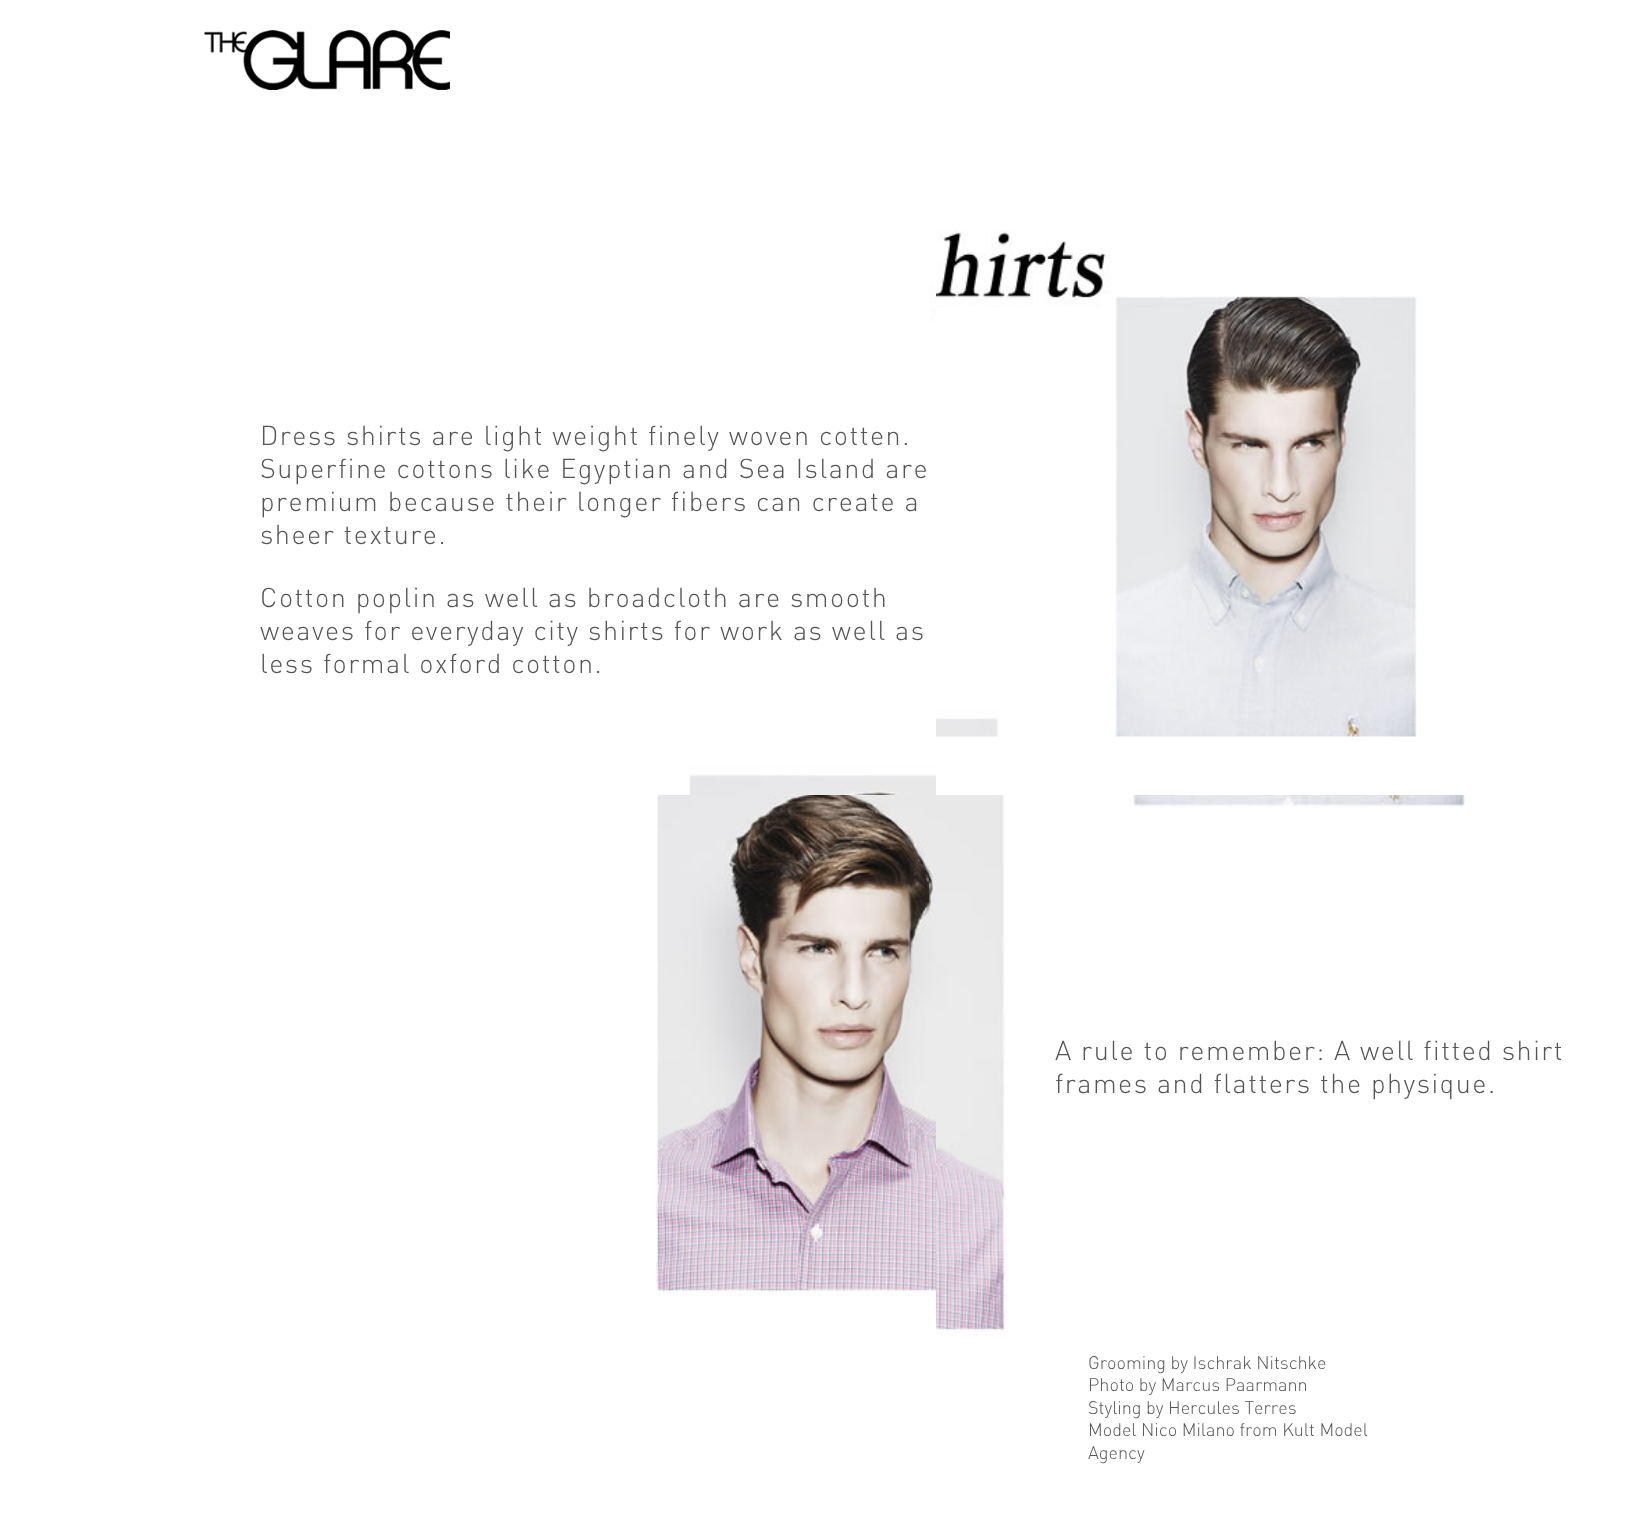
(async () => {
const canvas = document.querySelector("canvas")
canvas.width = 1634
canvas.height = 1522
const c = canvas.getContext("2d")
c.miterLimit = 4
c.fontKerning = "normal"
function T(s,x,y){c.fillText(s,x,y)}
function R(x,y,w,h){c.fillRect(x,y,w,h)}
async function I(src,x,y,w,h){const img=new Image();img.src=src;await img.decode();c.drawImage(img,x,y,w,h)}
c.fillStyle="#fff"
R(0,0,1634,1522)
await I("1.png",204,30,246,60)
await I("2.png",689,285,247,510)
c.letterSpacing="1.5px"
c.font="300 27px DIN"
c.fillStyle="#555"
T("Dress shirts are light weight finely woven cotten.",260,445)
T("Superfine cottons like Egyptian and Sea Island are",260,478)
T("premium because their longer fibers can create a",260,511)
T("sheer texture.",260,544)
T("Cotton poplin as well as broadcloth are smooth",260,607)
T("weaves for everyday city shirts for work as well as",260,640)
T("less formal oxford cotton.",260,673)
await I("3.png",936,230,481,507)
await I("4.png",656,795,280,501)
await I("5.png",936,795,529,540)
T("A rule to remember: A well fitted shirt",1055,1060)
T("frames and flatters the physique.",1055,1093)
c.letterSpacing="0px"
c.font="300 18px DIN"
T("Grooming by Ischrak Nitschke",1088,1369)
T("Photo by Marcus Paarmann",1088,1391)
T("Styling by Hercules Terres",1088,1414)
T("Model Nico Milano from Kult Model",1088,1436)
T("Agency",1088,1459)
})()
